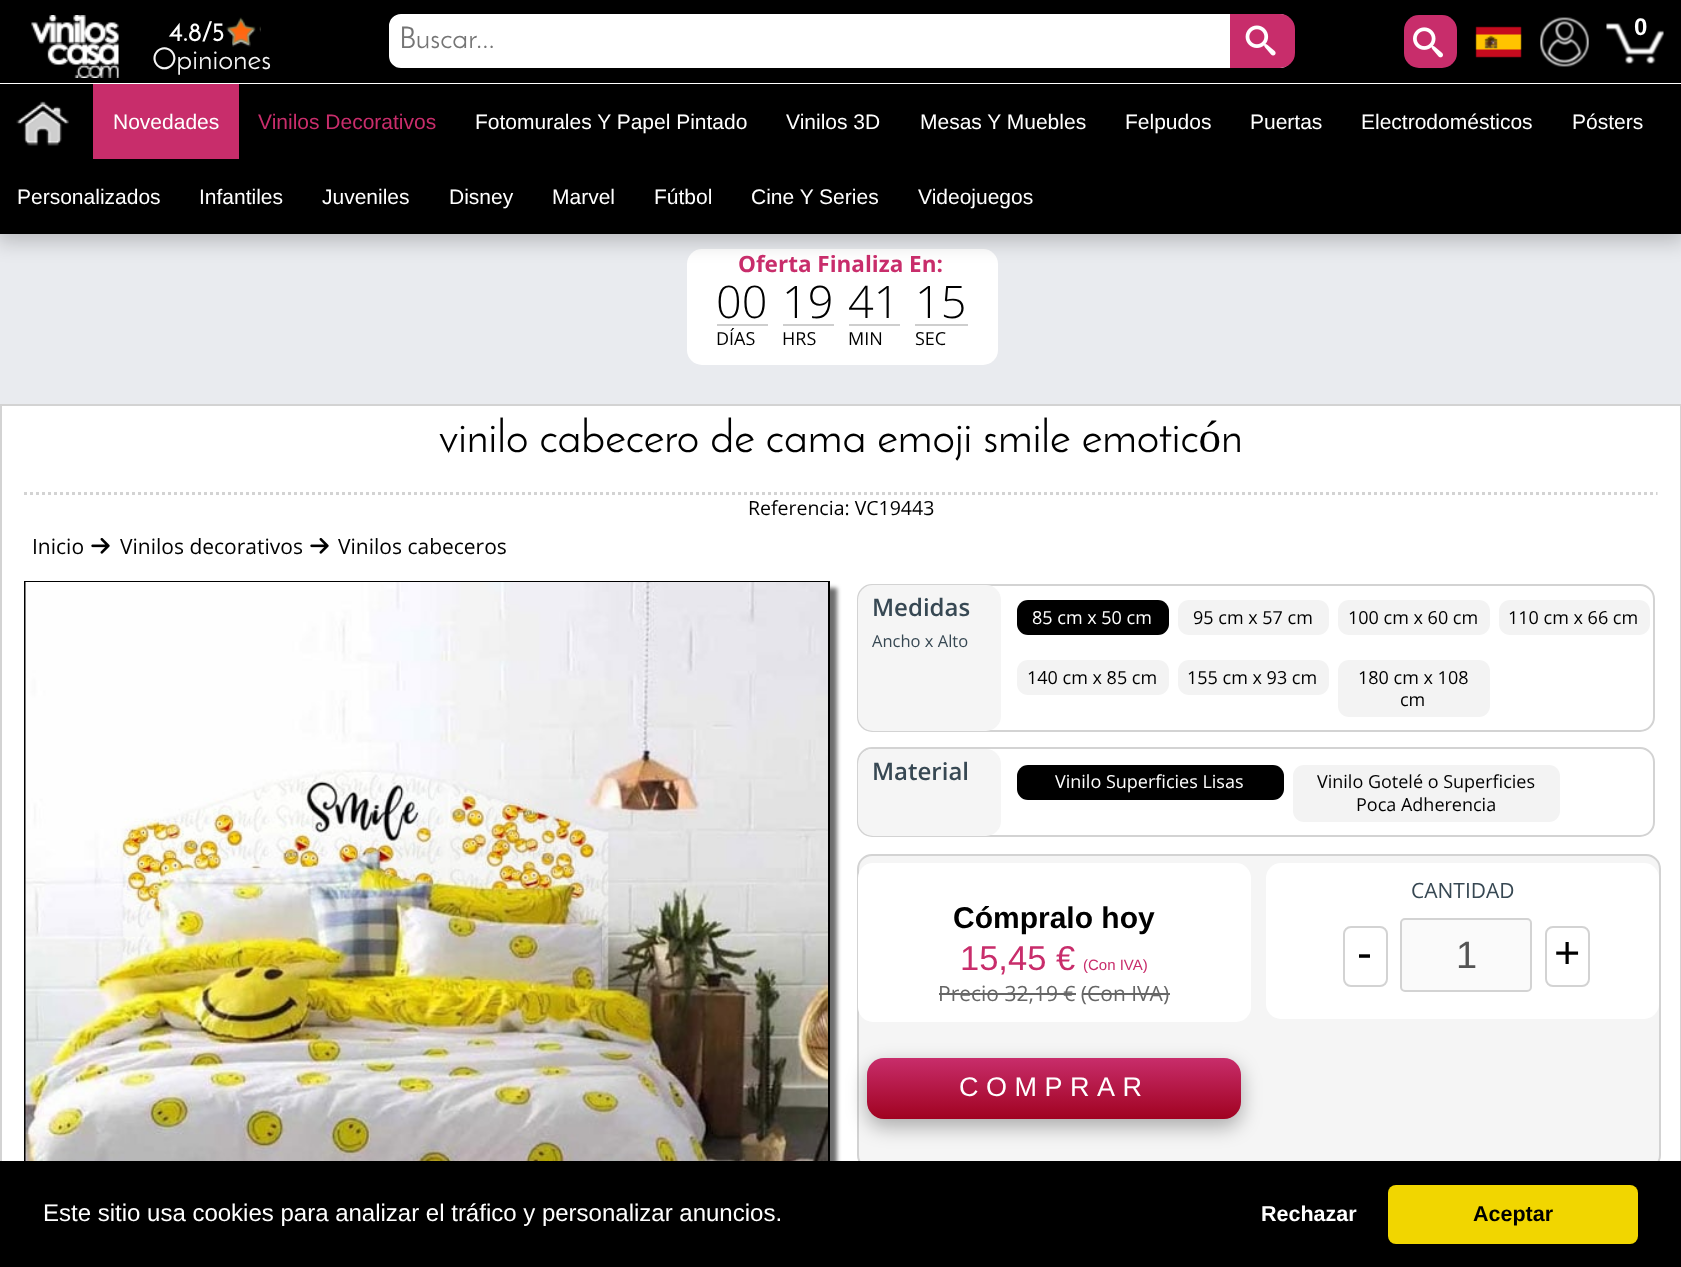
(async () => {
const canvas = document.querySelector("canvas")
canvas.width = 1681
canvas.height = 1267
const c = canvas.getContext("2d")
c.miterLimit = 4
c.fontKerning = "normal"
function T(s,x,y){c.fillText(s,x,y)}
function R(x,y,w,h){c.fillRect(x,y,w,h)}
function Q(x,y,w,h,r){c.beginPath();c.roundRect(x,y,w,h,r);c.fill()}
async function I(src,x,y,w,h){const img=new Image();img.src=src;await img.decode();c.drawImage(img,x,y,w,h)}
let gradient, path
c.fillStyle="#e9ebef"
R(0,0,1681,1267)
c.fillStyle="#000"
R(0,0,1681,83)
await I("1.png",31,15,88,63)
c.font="bold 25.5px Josefin Sans"
c.fillStyle="#fff"
T("4.8/5",169,41)
await I("2.png",226,19,35,28)
await I("3.png",226,17,35,28)
c.font="30px Josefin Sans"
c.fillStyle="#f5f5f5"
T("Opiniones",152,69)
c.fillStyle="#fff"
c.beginPath()
c.roundRect(387.5,12.5,906,57,13.5)
c.fill()
c.strokeStyle="#000"
c.lineWidth=3
c.stroke()
c.fillStyle="#757575"
T("Buscar...",399,48)
c.fillStyle="#c82d6b"
c.beginPath()
c.roundRect(1230,14,65,54,[0,15,15,0])
c.fill()
await I("4.png",1245,25,31,31)
c.fillStyle="#fff"
Q(687,249,311,116,15)
c.fillStyle="#00000033"
c.filter="blur(10px)"
c.beginPath()
c.rect(-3,90,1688,152)
c.fill()
c.filter="none"
c.fillStyle="#c82d6b"
Q(1404,15,53,53,15)
await I("5.png",1413,27,30,31)
await I("6.png",1475,26,47,32)
await I("7.png",1540,17,49,50)
c.font="bold 24px Liberation Sans"
c.fillStyle="#fff"
T("0",1634,35)
await I("8.png",1606,23,58,41)
R(0,83,1681,1)
c.fillStyle="#000"
R(0,84,1681,150)
await I("9.png",16,101,53,45)
c.fillStyle="#c82d6b"
R(93,84,146,75)
c.font="21px Liberation Sans"
c.fillStyle="#fff"
T("Novedades",113,129)
c.fillStyle="#c82d6b"
T("Vinilos Decorativos",258,129)
c.fillStyle="#fff"
T("Fotomurales Y Papel Pintado",475,129)
T("Vinilos 3D",786,129)
T("Mesas Y Muebles",920,129)
T("Felpudos",1125,129)
T("Puertas",1250,129)
T("Electrodomésticos",1361,129)
T("Pósters",1572,129)
T("Personalizados",17,204)
T("Infantiles",199,204)
T("Juveniles",322,204)
T("Disney",449,204)
T("Marvel",552,204)
T("Fútbol",654,204)
T("Cine Y Series",751,204)
T("Videojuegos",918,204)
c.font="bold 22.5px Open Sans"
c.fillStyle="#c82d6b"
T("Oferta Finaliza En:",738,272)
c.font="300 45px Open Sans"
c.fillStyle="#000"
T("00",716,318)
c.fillStyle="#cecece"
R(717,324,51,2)
c.font="18px Open Sans"
c.fillStyle="#000"
T("DÍAS",716,345)
c.font="300 45px Open Sans"
T("19",782,318)
c.fillStyle="#cecece"
R(783,324,51,2)
c.font="18px Open Sans"
c.fillStyle="#000"
T("HRS",782,345)
c.font="300 45px Open Sans"
T("41",848,318)
c.fillStyle="#cecece"
R(849,324,51,2)
c.font="18px Open Sans"
c.fillStyle="#000"
T("MIN",848,345)
c.font="300 45px Open Sans"
T("15",915,318)
c.fillStyle="#cecece"
R(915,324,53,2)
c.font="18px Open Sans"
c.fillStyle="#000"
T("SEC",915,345)
c.fillStyle="#fff"
R(2,406,1678,755)
c.strokeStyle="#d3d3d3"
c.lineWidth=2
c.strokeRect(1,405,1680,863)
path = new Path2D("M24 493.5h1633.5")
c.lineWidth=3
c.setLineDash([3,3])
c.stroke(path)
c.font="45px Josefin Sans"
c.fillStyle="#000"
T("vinilo cabecero de cama emoji smile emoticón",439,452)
c.font="19.5px Open Sans"
T("Referencia: VC19443",748,515)
c.font="21px Open Sans"
T("Inicio",32,554)
await I("10.png",91,538,19,16)
T("Vinilos decorativos",120,554)
await I("10.png",310,538,19,16)
T("Vinilos cabeceros",338,554)
c.fillStyle="#6e6e6e"
c.filter="blur(2px)"
c.beginPath()
c.rect(32,588,805,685)
c.fill()
c.filter="none"
c.strokeStyle="#000"
c.lineWidth=2
c.setLineDash([])
c.strokeRect(25,582,804,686)
await I("11.png",25,582,803,579)
c.beginPath()
c.roundRect(858,585,796,146,14)
c.strokeStyle="#d3d3d3"
c.stroke()
c.fillStyle="#f5f5f5"
Q(858,585,143,146,15)
c.font="600 24px Open Sans"
c.fillStyle="#374853"
T("Medidas",872,616)
c.font="16.5px Open Sans"
T("Ancho x Alto",872,647)
c.fillStyle="#000"
Q(1017,600,152,35,11)
c.font="18px Open Sans"
c.fillStyle="#fff"
T("85 cm x 50 cm",1032,624)
c.fillStyle="#f3f3f3"
Q(1178,600,151,35,11)
c.fillStyle="#000"
T("95 cm x 57 cm",1193,624)
c.fillStyle="#f3f3f3"
Q(1338,600,152,35,11)
c.fillStyle="#000"
T("100 cm x 60 cm",1348,624)
c.fillStyle="#f3f3f3"
Q(1499,600,151,35,11)
c.fillStyle="#000"
T("110 cm x 66 cm",1508,624)
c.fillStyle="#f3f3f3"
Q(1017,660,152,35,11)
c.fillStyle="#000"
T("140 cm x 85 cm",1027,684)
c.fillStyle="#f3f3f3"
Q(1178,660,151,35,11)
c.fillStyle="#000"
T("155 cm x 93 cm",1187,684)
c.fillStyle="#f3f3f3"
Q(1338,660,152,57,11)
c.fillStyle="#000"
T("180 cm x 108",1358,684)
T("cm",1400,706)
c.beginPath()
c.roundRect(858,748,796,88,14)
c.stroke()
c.fillStyle="#f5f5f5"
Q(858,749,143,87,15)
c.font="600 24px Open Sans"
c.fillStyle="#374853"
T("Material",872,780)
c.fillStyle="#000"
Q(1017,765,267,35,11)
c.font="18px Open Sans"
c.fillStyle="#fff"
T("Vinilo Superficies Lisas",1055,788)
c.fillStyle="#f3f3f3"
Q(1293,765,267,57,11)
c.fillStyle="#000"
T("Vinilo Gotelé o Superficies",1317,788)
T("Poca Adherencia",1356,811)
c.fillStyle="#f5f5f5"
c.beginPath()
c.roundRect(858,855,802,314,14)
c.fill()
c.stroke()
c.fillStyle="#fff"
Q(858,863,393,159,15)
c.font="bold 30px Liberation Sans"
c.fillStyle="#000"
T("Cómpralo hoy",953,928)
c.font="34.5px Liberation Sans"
c.fillStyle="#c82d6b"
T("15,45 €",960,970)
c.font="15px Liberation Sans"
T("(Con IVA)",1083,970)
c.font="21px Open Sans"
c.fillStyle="#666"
T("Precio 32,19 € (Con IVA)",938,1001)
R(939,993,137,2)
R(1082,993,88,2)
c.fillStyle="#fff"
Q(1266,863,393,156,15)
c.fillStyle="#374853"
T("CANTIDAD",1411,898)
c.beginPath()
c.roundRect(1344,927,43,59,7)
c.stroke()
c.font="45px Liberation Sans"
c.fillStyle="#000"
T("-",1357,968)
c.fillStyle="#fafafa"
c.beginPath()
c.roundRect(1401,919,130,72,4)
c.fill()
c.stroke()
c.font="38px Liberation Sans"
c.fillStyle="#545454"
T("1",1456,968)
c.beginPath()
c.roundRect(1546,927,43,59,7)
c.stroke()
c.font="45px Liberation Sans"
c.fillStyle="#000"
T("+",1554,968)
c.fillStyle="#0000004d"
c.filter="blur(10px)"
c.beginPath()
c.roundRect(867,1065,374,62,17)
c.fill()
c.filter="none"
gradient = c.createLinearGradient(1054,1058,1054,1119)
gradient.addColorStop(0,"#c82d6b")
gradient.addColorStop(1,"#a00220")
c.fillStyle = gradient
Q(867,1058,374,61,17)
c.letterSpacing="7.5px"
c.font="27px Liberation Sans"
c.fillStyle="#fff"
T("COMPRAR",959,1096)
c.fillStyle="#000"
R(0,1161,1681,106)
c.letterSpacing="0px"
c.font="24px Liberation Sans"
c.fillStyle="#fff"
T("Este sitio usa cookies para analizar el tráfico y personalizar anuncios.",43,1221)
c.font="bold 21.5px Liberation Sans"
T("Rechazar",1261,1221)
c.fillStyle="#f1d600"
Q(1388,1185,250,59,8)
c.fillStyle="#000"
T("Aceptar",1473,1221)
})()
